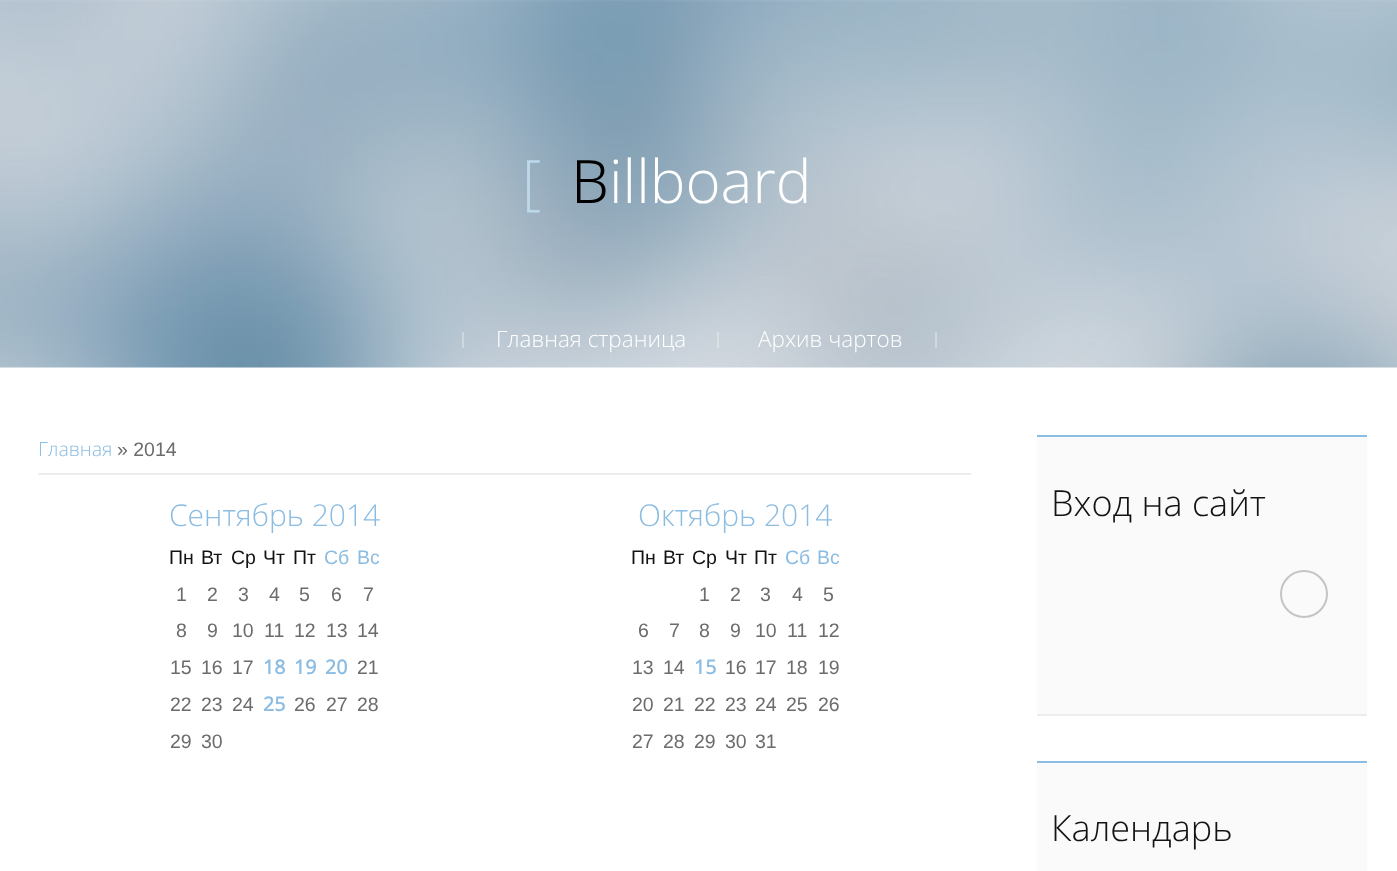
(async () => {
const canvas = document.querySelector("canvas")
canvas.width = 1397
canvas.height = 871
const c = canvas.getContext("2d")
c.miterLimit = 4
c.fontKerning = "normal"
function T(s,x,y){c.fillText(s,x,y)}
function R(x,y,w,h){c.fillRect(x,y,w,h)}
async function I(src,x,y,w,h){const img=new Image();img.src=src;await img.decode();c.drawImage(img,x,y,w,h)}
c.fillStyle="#fff"
R(0,0,1397,871)
await I("1.png",0,0,1397,368)
c.font="300 60px Open Sans"
c.fillStyle="#bdd8eb"
T("[",522,203)
c.font="300 60px Noto Sans"
c.fillStyle="#000"
T("B",571,203)
c.font="300 60px Open Sans"
c.fillStyle="#fff"
T("illboard",609,203)
c.fillStyle="#ffffff4d"
R(462,332,2,16)
c.font="300 22.5px Open Sans"
c.fillStyle="#fff"
T("Главная страница",496,347)
c.fillStyle="#ffffff4d"
R(717,332,2,16)
c.fillStyle="#fff"
T("Архив чартов",758,347)
c.fillStyle="#cfd8de"
R(935,332,2,16)
c.font="300 19.5px Open Sans"
c.fillStyle="#8bbce1"
T("Главная",38,456)
c.font="19.5px Liberation Sans"
c.fillStyle="#6c6c6c"
T("» 2014",117,456)
c.fillStyle="#ededed"
R(38,473,933,2)
c.font="300 30px Open Sans"
c.fillStyle="#8bbce1"
T("Сентябрь 2014",169,526)
c.font="19.5px Liberation Sans"
c.fillStyle="#131313"
T("Пн",169,564)
T("Вт",201,564)
T("Ср",231,564)
T("Чт",263,564)
T("Пт",293,564)
c.fillStyle="#8bbce1"
T("Сб",324,564)
T("Вс",357,564)
c.fillStyle="#6c6c6c"
T("1",176,601)
T("2",207,601)
T("3",238,601)
T("4",269,601)
T("5",299,601)
T("6",331,601)
T("7",363,601)
T("8",176,637)
T("9",207,637)
T("10",232,637)
T("11",264,637)
T("12",294,637)
T("13",326,637)
T("14",357,637)
T("15",170,674)
T("16",201,674)
T("17",232,674)
c.font="bold 19.5px Open Sans"
c.fillStyle="#8bbce1"
T("18",263,674)
T("19",294,674)
T("20",325,674)
c.font="19.5px Liberation Sans"
c.fillStyle="#6c6c6c"
T("21",357,674)
T("22",170,711)
T("23",201,711)
T("24",232,711)
c.font="bold 19.5px Open Sans"
c.fillStyle="#8bbce1"
T("25",263,711)
c.font="19.5px Liberation Sans"
c.fillStyle="#6c6c6c"
T("26",294,711)
T("27",326,711)
T("28",357,711)
T("29",170,748)
T("30",201,748)
c.font="300 30px Open Sans"
c.fillStyle="#8bbce1"
T("Октябрь 2014",638,526)
c.font="19.5px Liberation Sans"
c.fillStyle="#131313"
T("Пн",631,564)
T("Вт",663,564)
T("Ср",692,564)
T("Чт",725,564)
T("Пт",754,564)
c.fillStyle="#8bbce1"
T("Сб",785,564)
T("Вс",817,564)
c.fillStyle="#6c6c6c"
T("1",699,601)
T("2",730,601)
T("3",760,601)
T("4",792,601)
T("5",823,601)
T("6",638,637)
T("7",669,637)
T("8",699,637)
T("9",730,637)
T("10",755,637)
T("11",787,637)
T("12",818,637)
T("13",632,674)
T("14",663,674)
c.font="bold 19.5px Open Sans"
c.fillStyle="#8bbce1"
T("15",694,674)
c.font="19.5px Liberation Sans"
c.fillStyle="#6c6c6c"
T("16",725,674)
T("17",755,674)
T("18",786,674)
T("19",818,674)
T("20",632,711)
T("21",663,711)
T("22",694,711)
T("23",725,711)
T("24",755,711)
T("25",786,711)
T("26",818,711)
T("27",632,748)
T("28",663,748)
T("29",694,748)
T("30",725,748)
T("31",755,748)
c.fillStyle="#fafafa"
R(1037,437,330,277)
c.fillStyle="#8bbce1"
R(1037,435,330,2)
c.fillStyle="#ededed"
R(1037,714,330,2)
c.font="300 36px Open Sans"
c.fillStyle="#131313"
T("Вход на сайт",1051,516)
c.beginPath()
c.arc(1304,594,23,0,7)
c.strokeStyle="#c4c4c4"
c.lineWidth=2
c.stroke()
c.fillStyle="#fafafa"
R(1037,763,330,108)
c.fillStyle="#8bbce1"
R(1037,761,330,2)
c.fillStyle="#131313"
T("Календарь",1051,841)
})()
